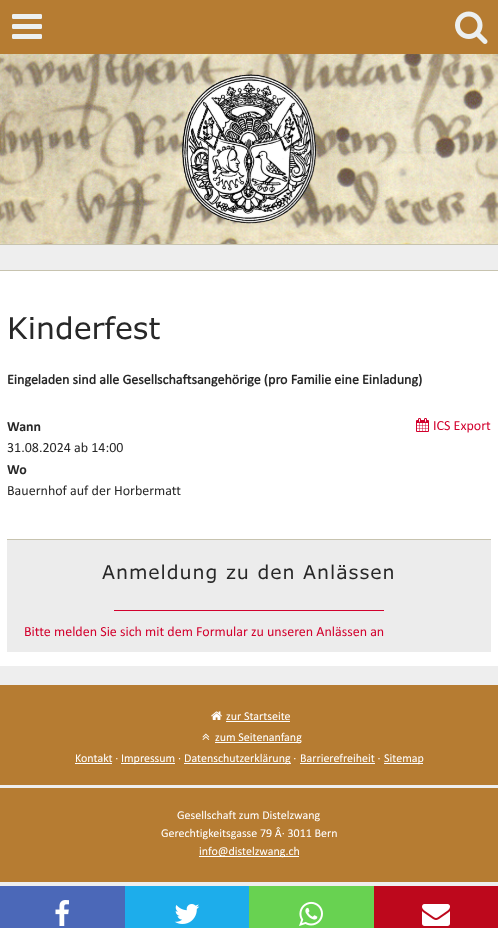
(async () => {
const canvas = document.querySelector("canvas")
canvas.width = 498
canvas.height = 928
const c = canvas.getContext("2d")
c.miterLimit = 4
c.fontKerning = "normal"
function T(s,x,y){c.fillText(s,x,y)}
function R(x,y,w,h){c.fillRect(x,y,w,h)}
async function I(src,x,y,w,h){const img=new Image();img.src=src;await img.decode();c.drawImage(img,x,y,w,h)}
c.fillStyle="#eee"
R(0,0,498,928)
c.fillStyle="#b67c32"
R(0,0,498,54)
await I("1.png",12,14,30,25)
await I("2.png",455,11,33,33)
await I("3.png",0,54,498,190)
c.fillStyle="#c7c3af"
R(0,244,498,1)
await I("4.png",182,74,135,150)
c.fillStyle="#fff"
R(0,271,498,395)
c.fillStyle="#c7c3af"
R(0,270,498,1)
c.font="30px Verdana"
c.fillStyle="#282828"
T("Kinderfest",7,339)
c.font="italic bold 14px Calibri"
T("Eingeladen sind alle Gesellschaftsangehörige (pro Familie eine Einladung)",7,384)
c.font="bold 14px Calibri"
T("Wann",7,431)
c.font="italic 14px Calibri"
T("31.08.2024 ab 14:00",7,452)
await I("5.png",416,418,13,14)
c.fillStyle="#d2002d"
T("ICS Export",433,430)
c.font="bold 14px Calibri"
c.fillStyle="#282828"
T("Wo",7,474)
c.font="italic 14px Calibri"
T("Bauernhof auf der Horbermatt",7,495)
c.fillStyle="#ececec"
R(7,540,484,112)
c.fillStyle="#c7c3af"
R(7,539,484,1)
c.letterSpacing="0.95px"
c.font="19px Verdana"
c.fillStyle="#282828"
T("Anmeldung zu den Anlässen",102,579)
c.fillStyle="#d2002d"
R(114,610,270,1)
c.letterSpacing="0px"
c.font="italic 14px Calibri"
T("Bitte melden Sie sich mit dem Formular zu unseren Anlässen an",24,636)
c.fillStyle="#b67c32"
R(0,685,498,100)
await I("6.png",211,711,11,9)
c.font="italic 12px Calibri"
c.fillStyle="#fff"
T("zur Startseite",226,720)
R(226,721,64,1)
await I("7.png",202,733,8,7)
R(215,742,86,1)
T("zum Seitenanfang",215,741)
T("Kontakt ·",75,762)
R(75,763,37,1)
R(121,763,54,1)
T("Impressum ·",121,762)
R(184,763,107,1)
T("Datenschutzerklärung ·",184,762)
T("Barrierefreiheit ·",300,762)
R(300,763,75,1)
R(384,763,39,1)
T("Sitemap",384,762)
c.fillStyle="#b67c32"
R(0,788,498,94)
c.fillStyle="#fff"
T("Gesellschaft zum Distelzwang",177,819)
T("Gerechtigkeitsgasse 79 Â· 3011 Bern",161,837)
R(199,856,100,1)
T("info@distelzwang.ch",199,855)
c.fillStyle="#4b68b8"
R(0,886,125,42)
await I("8.png",55,900,14,26)
c.fillStyle="#1dadeb"
R(125,886,124,42)
await I("9.png",174,904,26,20)
c.fillStyle="#68d251"
R(249,886,125,42)
await I("10.png",299,901,24,25)
c.fillStyle="#bd081c"
R(374,886,124,42)
await I("11.png",422,904,28,22)
})()
